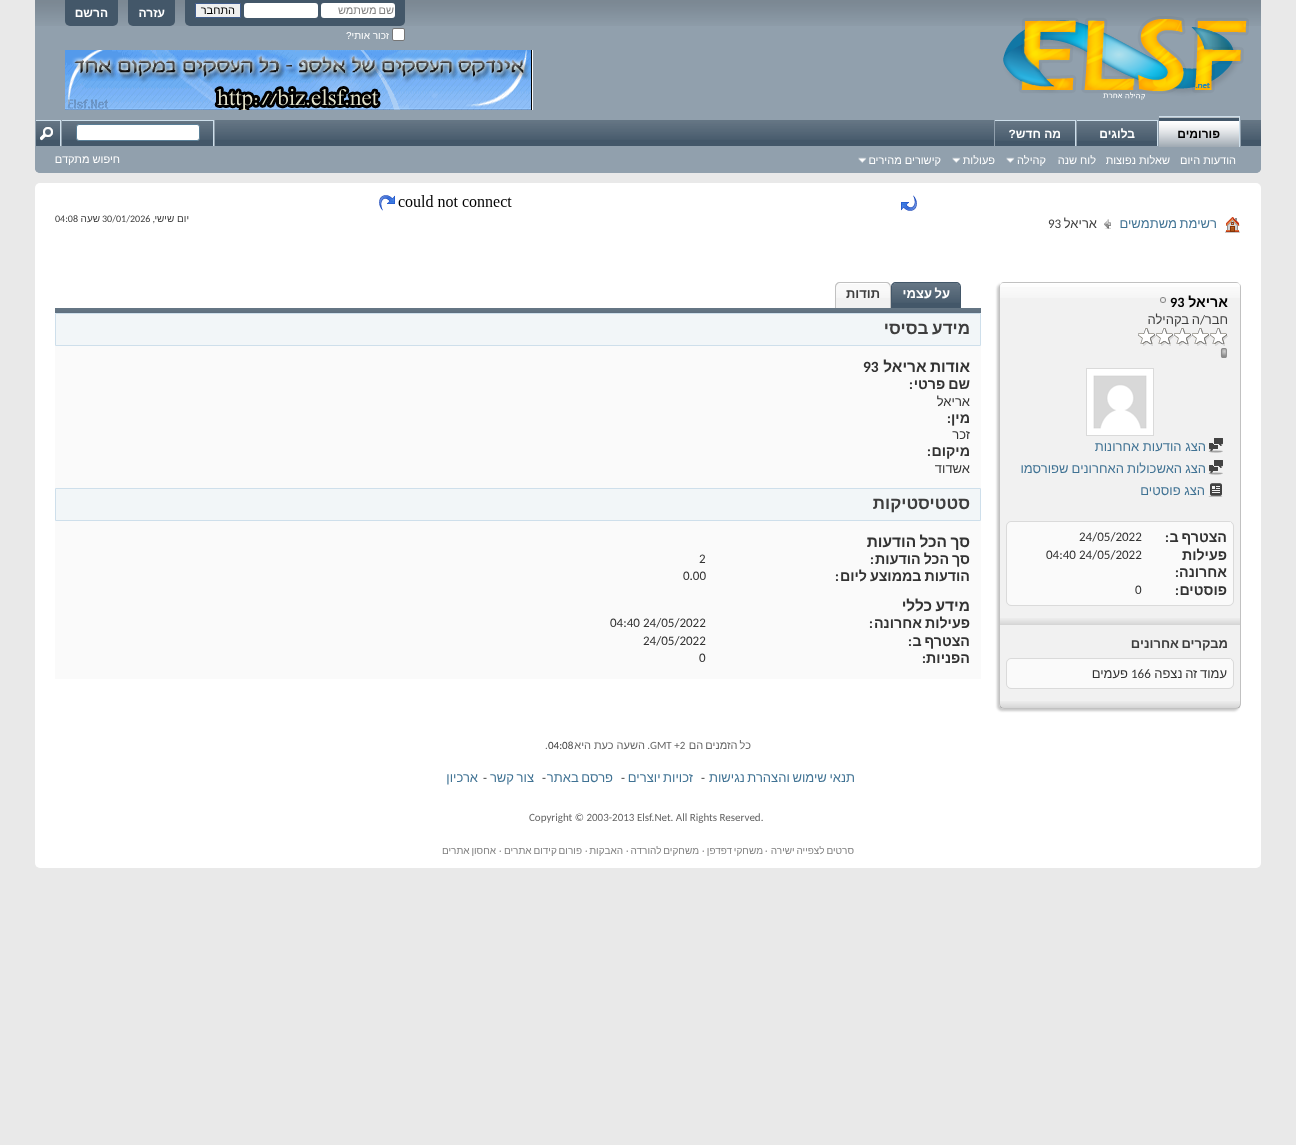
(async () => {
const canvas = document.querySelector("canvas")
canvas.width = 1296
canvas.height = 1145
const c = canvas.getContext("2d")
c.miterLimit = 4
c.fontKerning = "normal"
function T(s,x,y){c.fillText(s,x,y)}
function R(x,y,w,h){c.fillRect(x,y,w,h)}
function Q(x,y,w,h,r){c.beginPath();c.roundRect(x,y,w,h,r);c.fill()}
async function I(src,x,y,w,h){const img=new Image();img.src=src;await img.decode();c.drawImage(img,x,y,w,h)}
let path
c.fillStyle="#e9e9e9"
R(0,0,1296,1145)
c.fillStyle="#91a0ad"
c.beginPath()
c.roundRect(35,0,1226,173,[0,0,5,5])
c.fill()
await I("1.png",35,0,1226,26)
await I("2.png",1003,16,246,84)
c.fillStyle="#435769"
c.beginPath()
c.roundRect(185,0,220,26,[0,0,5,5])
c.fill()
c.fillStyle="#fff"
Q(321,3,74,15,3)
c.wordSpacing="-1px"
c.direction="rtl"
c.font="11px Liberation Sans"
c.fillStyle="#808080"
T("שם משתמש",394,14)
c.fillStyle="#fff"
Q(244,3,74,15,3)
c.fillStyle="#efefef"
c.beginPath()
c.rect(195.5,3.5,45,14)
c.fill()
c.strokeStyle="#415d8d"
c.stroke()
c.wordSpacing="0px"
c.fillStyle="#000"
T("התחבר",235,14)
c.fillStyle="#fff"
c.beginPath()
c.roundRect(392.5,28.5,12,12,1.5)
c.fill()
c.strokeStyle="#767676"
c.stroke()
c.font="10px Liberation Sans"
T("זכור אותי?",389,39)
c.fillStyle="#435769"
c.beginPath()
c.roundRect(128,0,47,26,[0,0,5,5])
c.fill()
c.font="bold 12px Liberation Sans"
c.fillStyle="#fff"
T("עזרה",165,17)
c.fillStyle="#435769"
c.beginPath()
c.roundRect(65,0,53,26,[0,0,5,5])
c.fill()
c.fillStyle="#fff"
T("הרשם",108,17)
await I("3.png",65,50,468,60)
c.fillStyle="#91a0ad"
c.beginPath()
c.roundRect(35,120,1226,53,[0,0,5,5])
c.fill()
c.fillStyle="#435769"
R(36,120,1225,26)
await I("4.png",36,120,1225,20)
c.fillStyle="#91a0ad"
R(1076,120,1,27)
c.fillStyle="#435769"
R(1077,121,80,19)
await I("5.png",1077,121,80,20)
c.fillStyle="#cedfeb"
R(1077,120,81,1)
R(1157,120,1,27)
c.fillStyle="#fff"
T("בלוגים",1135,138)
c.fillStyle="#91a0ad"
R(994,120,1,27)
c.fillStyle="#435769"
R(995,121,80,19)
await I("5.png",995,121,80,20)
c.fillStyle="#cedfeb"
R(995,120,81,1)
R(1075,120,1,27)
c.fillStyle="#fff"
T("מה חדש?",1061,138)
c.fillStyle="#91a0ad"
R(1240,120,1,26)
R(1158,120,1,26)
c.fillStyle="#435769"
R(1159,117,80,30)
await I("6.png",1159,117,80,30)
c.fillStyle="#cedfeb"
R(1159,116,81,1)
R(1239,116,1,31)
c.fillStyle="#000"
T("פורומים",1220,138)
c.fillStyle="#91a0ad"
R(1075,146,83,1)
c.font="11px Liberation Sans"
c.fillStyle="#fff"
T("הודעות היום",1236,164)
T("שאלות נפוצות",1170,164)
T("לוח שנה",1096,164)
T("קהילה",1046,164)
await I("7.png",1006,157,9,6)
T("פעולות",995,164)
await I("7.png",952,157,9,6)
T("קישורים מהירים",941,164)
await I("7.png",858,157,9,6)
c.fillStyle="#91a0ad"
R(214,120,1,26)
c.fillStyle="#cedfeb"
R(62,120,152,1)
R(213,120,1,26)
c.fillStyle="#fff"
c.beginPath()
c.roundRect(76.5,124.5,123,16,2.5)
c.fill()
c.strokeStyle="#5a7f97"
c.stroke()
c.fillStyle="#91a0ad"
R(61,120,1,26)
c.fillStyle="#cedfeb"
R(36,120,25,1)
R(60,120,1,26)
await I("8.png",40,127,13,14)
c.fillStyle="#fff"
T("חיפוש מתקדם",120,163)
Q(35,183,1226,685,5)
await I("9.png",901,195,16,16)
await I("10.png",398,195,114,12)
await I("11.png",379,195,16,16)
await I("12.png",1225,217,15,16)
await I("13.png",1104,219,7,10)
c.wordSpacing="-1px"
c.font="13px Liberation Sans"
c.fillStyle="#417394"
T("רשימת משתמשים",1217,228)
c.wordSpacing="0px"
c.fillStyle="#3e3e3e"
T("אריאל",1097,228)
c.direction="ltr"
c.font="13px Carlito"
T("93",1048,228)
c.direction="rtl"
c.font="10px Liberation Sans"
T("יום שישי",189,222)
c.font="10px Carlito"
T(",",155,222)
c.direction="ltr"
T("30/01/2026",102,222)
c.direction="rtl"
c.font="10px Liberation Sans"
T("שעה",100,222)
c.direction="ltr"
c.font="10px Carlito"
T("04:08",55,222)
c.fillStyle="#c8c8c8"
c.filter="blur(1px)"
c.beginPath()
c.roundRect(997,284,242,427,5)
c.fill()
c.filter="none"
c.fillStyle="#f1f1f1"
Q(999,282,242,427,5)
await I("14.png",999,283,242,15)
c.beginPath()
c.roundRect(999.5,282.5,241,426,4.5)
c.strokeStyle="#c1c1c1"
c.stroke()
c.fillStyle="#ffffff94"
R(1000,283,240,4)
c.direction="rtl"
c.font="bold 14.25px Liberation Sans"
c.fillStyle="#000"
T("אריאל",1228,307)
c.direction="ltr"
c.font="bold 14.25px Carlito"
T("93",1170,307)
await I("15.png",1160,297,6,6)
c.wordSpacing="-1px"
c.direction="rtl"
c.font="13px Liberation Sans"
c.fillStyle="#3e3e3e"
T("ה בקהילה",1200,324)
c.wordSpacing="0px"
c.font="13px Carlito"
T("/",1205,324)
c.font="13px Liberation Sans"
T("חבר",1228,324)
await I("16.png",1138,328,90,18)
await I("17.png",1220,348,7,10)
c.strokeStyle="#fff"
c.lineWidth=3
c.strokeRect(1088.5,370.5,63,63)
await I("18.png",1090,372,60,60)
c.strokeStyle="#dadada"
c.lineWidth=1
c.strokeRect(1086.5,368.5,67,67)
await I("19.png",1208,438,15,15)
c.fillStyle="#417394"
T("הצג הודעות אחרונות",1206,451)
await I("19.png",1208,460,15,15)
c.wordSpacing="-0.5px"
T("הצג האשכולות האחרונים שפורסמו",1206,473)
await I("20.png",1208,483,15,14)
c.wordSpacing="0px"
T("הצג פוסטים",1205,495)
c.beginPath()
c.roundRect(1006.5,521.5,227,84,4.5)
c.stroke()
c.fillStyle="#fafafa"
Q(1007,522,226,83,5)
R(1230,522,1,1)
c.wordSpacing="-1px"
c.font="bold 14.25px Liberation Sans"
c.fillStyle="#333"
T("הצטרף ב",1227,542)
c.wordSpacing="0px"
c.direction="ltr"
c.font="bold 14.25px Carlito"
T(":",1165,542)
c.font="13px Carlito"
T("24/05/2022",1079,541)
c.direction="rtl"
c.font="bold 14.25px Liberation Sans"
T("פעילות",1227,560)
T("אחרונה",1227,577)
c.direction="ltr"
c.font="bold 14.25px Carlito"
T(":",1175,577)
c.font="13px Carlito"
T("24/05/2022",1079,559)
T("04:40",1046,559)
c.direction="rtl"
c.font="bold 14.25px Liberation Sans"
T("פוסטים",1227,595)
c.direction="ltr"
c.font="bold 14.25px Carlito"
T(":",1175,595)
c.font="13px Carlito"
T("0",1135,594)
await I("21.png",1000,618,240,7)
c.wordSpacing="-1px"
c.direction="rtl"
c.font="bold 13px Liberation Sans"
c.fillStyle="#3e3e3e"
T("מבקרים אחרונים",1228,648)
c.beginPath()
c.roundRect(1006.5,658.5,227,30,4.5)
c.stroke()
c.fillStyle="#fafafa"
Q(1007,659,226,29,5)
R(1230,659,1,1)
c.font="13px Liberation Sans"
c.fillStyle="#333"
T("עמוד זה נצפה",1227,678)
c.wordSpacing="0px"
c.direction="ltr"
c.font="13px Carlito"
T("166",1131,678)
c.direction="rtl"
c.font="13px Liberation Sans"
T("פעמים",1128,678)
await I("22.png",1000,701,240,7)
c.fillStyle="#435769"
c.beginPath()
c.roundRect(892,283,68,25,[4,4,0,0])
c.fill()
await I("23.png",892,283,68,20)
path = new Path2D("M896 282h60c3 0 5 2 5 5v21h-70v-21c0-3 2-5 5-5zm0 1h60c2 0 4 2 4 4v21h-68v-21c0-2 2-4 4-4z")
c.fill(path,"evenodd")
c.wordSpacing="-1px"
c.font="bold 13px Liberation Sans"
c.fillStyle="#fff"
T("על עצמי",950,298)
c.fillStyle="#f1f1f1"
c.beginPath()
c.roundRect(836,283,54,25,[4,4,0,0])
c.fill()
await I("24.png",836,283,54,15)
c.fillStyle="#c1c1c1"
path = new Path2D("M840 282h46c3 0 5 2 5 5v21h-56v-21c0-3 2-5 5-5zm0 1h46c2 0 4 2 4 4v21h-54v-21c0-2 2-4 4-4z")
c.fill(path,"evenodd")
c.wordSpacing="0px"
c.fillStyle="#3e3e3e"
T("תודות",880,298)
c.fillStyle="#435769"
R(55,308,926,5)
await I("25.png",55,308,926,5)
c.fillStyle="#f2f6f8"
c.beginPath()
c.rect(55.5,313.5,925,32)
c.fill()
c.strokeStyle="#cedfeb"
c.stroke()
c.wordSpacing="-1px"
c.font="bold 17px Liberation Sans"
c.fillStyle="#3e3e3e"
T("מידע בסיסי",970,334)
c.fillStyle="#fafafa"
R(55,346,926,142)
c.font="bold 15.5px Liberation Sans"
c.fillStyle="#333"
T("אודות אריאל",970,372)
c.wordSpacing="0px"
c.direction="ltr"
c.font="bold 15.5px Carlito"
T("93",863,372)
c.wordSpacing="-1px"
c.direction="rtl"
c.font="bold 14.25px Liberation Sans"
T("שם פרטי",970,389)
c.wordSpacing="0px"
c.font="bold 14.25px Carlito"
T(":",913,389)
c.font="13px Liberation Sans"
T("אריאל",970,406)
c.font="bold 14.25px Liberation Sans"
T("מין",970,423)
c.font="bold 14.25px Carlito"
T(":",951,423)
c.font="13px Liberation Sans"
T("זכר",970,439)
c.font="bold 14.25px Liberation Sans"
T("מיקום",970,456)
c.font="bold 14.25px Carlito"
T(":",931,456)
c.font="13px Liberation Sans"
T("אשדוד",970,473)
c.fillStyle="#f2f6f8"
c.beginPath()
c.rect(55.5,488.5,925,32)
c.fill()
c.stroke()
c.font="bold 17px Liberation Sans"
c.fillStyle="#3e3e3e"
T("סטטיסטיקות",970,509)
c.fillStyle="#fafafa"
R(55,521,926,158)
c.wordSpacing="-1px"
c.font="bold 15.5px Liberation Sans"
c.fillStyle="#333"
T("סך הכל הודעות",970,547)
c.font="bold 14.25px Liberation Sans"
T("סך הכל הודעות",970,564)
c.wordSpacing="0px"
c.direction="ltr"
c.font="bold 14.25px Carlito"
T(":",870,564)
c.font="13px Carlito"
T("2",699,563)
c.wordSpacing="-1px"
c.direction="rtl"
c.font="bold 14.25px Liberation Sans"
T("הודעות בממוצע ליום",970,581)
c.wordSpacing="0px"
c.direction="ltr"
c.font="bold 14.25px Carlito"
T(":",835,581)
c.font="13px Carlito"
T("0.00",683,580)
c.wordSpacing="-1px"
c.direction="rtl"
c.font="bold 15.5px Liberation Sans"
T("מידע כללי",970,611)
c.font="bold 14.25px Liberation Sans"
T("פעילות אחרונה",970,628)
c.wordSpacing="0px"
c.direction="ltr"
c.font="bold 14.25px Carlito"
T(":",869,628)
c.font="13px Carlito"
T("24/05/2022",643,627)
T("04:40",610,627)
c.wordSpacing="-1px"
c.direction="rtl"
c.font="bold 14.25px Liberation Sans"
T("הצטרף ב",970,646)
c.wordSpacing="0px"
c.direction="ltr"
c.font="bold 14.25px Carlito"
T(":",908,646)
c.font="13px Carlito"
T("24/05/2022",643,645)
c.direction="rtl"
c.font="bold 14.25px Liberation Sans"
T("הפניות",970,663)
c.direction="ltr"
c.font="bold 14.25px Carlito"
T(":",922,663)
c.font="13px Carlito"
T("0",699,662)
c.wordSpacing="-1px"
c.direction="rtl"
c.font="11px Liberation Sans"
c.fillStyle="#666"
T("כל הזמנים הם",751,749)
c.wordSpacing="0px"
c.direction="ltr"
c.font="11px Carlito"
T("GMT +2",650,749)
c.direction="rtl"
T(".",650,749)
c.font="11px Liberation Sans"
T("השעה כעת היא",645,749)
c.direction="ltr"
c.font="11px Carlito"
c.fillStyle="#3e3e3e"
T("04:08",548,749)
c.fillStyle="#666"
T(".",545,749)
c.wordSpacing="-1px"
c.direction="rtl"
c.font="13px Liberation Sans"
c.fillStyle="#417394"
T("תנאי שימוש והצהרת נגישות",855,782)
c.wordSpacing="0px"
c.direction="ltr"
c.font="13px Carlito"
c.fillStyle="#3e3e3e"
T("-",701,782)
c.wordSpacing="-1px"
c.direction="rtl"
c.font="13px Liberation Sans"
c.fillStyle="#417394"
T("זכויות יוצרים",693,782)
c.wordSpacing="0px"
c.direction="ltr"
c.font="13px Carlito"
c.fillStyle="#3e3e3e"
T("-",621,782)
c.wordSpacing="-1px"
c.direction="rtl"
c.font="13px Liberation Sans"
c.fillStyle="#417394"
T("פרסם באתר",613,782)
c.wordSpacing="0px"
c.direction="ltr"
c.font="13px Carlito"
c.fillStyle="#3e3e3e"
T("-",542,782)
c.wordSpacing="-1px"
c.direction="rtl"
c.font="13px Liberation Sans"
c.fillStyle="#417394"
T("צור קשר",534,782)
c.wordSpacing="0px"
c.direction="ltr"
c.font="13px Carlito"
c.fillStyle="#3e3e3e"
T("-",483,782)
c.direction="rtl"
c.font="13px Liberation Sans"
c.fillStyle="#417394"
T("ארכיון",478,782)
c.direction="ltr"
c.font="11px Carlito"
c.fillStyle="#666"
T("Copyright © 2003-2013 Elsf.Net. All Rights Reserved.",529,821)
c.wordSpacing="-1px"
c.direction="rtl"
c.font="10px Liberation Sans"
c.fillStyle="#808080"
T("סרטים לצפייה ישירה",854,854)
c.wordSpacing="0px"
c.direction="ltr"
c.font="10px Carlito"
T("·",765,854)
c.wordSpacing="-1px"
c.direction="rtl"
c.font="10px Liberation Sans"
T("משחקי דפדפן",763,854)
c.wordSpacing="0px"
c.direction="ltr"
c.font="10px Carlito"
T("·",702,854)
c.wordSpacing="-1px"
c.direction="rtl"
c.font="10px Liberation Sans"
T("משחקים להורדה",699,854)
c.wordSpacing="0px"
c.direction="ltr"
c.font="10px Carlito"
T("·",626,854)
c.direction="rtl"
c.font="10px Liberation Sans"
T("האבקות",623,854)
c.direction="ltr"
c.font="10px Carlito"
T("·",585,854)
c.wordSpacing="-1px"
c.direction="rtl"
c.font="10px Liberation Sans"
T("פורום קידום אתרים",582,854)
c.wordSpacing="0px"
c.direction="ltr"
c.font="10px Carlito"
T("·",499,854)
c.wordSpacing="-1px"
c.direction="rtl"
c.font="10px Liberation Sans"
T("אחסון אתרים",496,854)
})()
